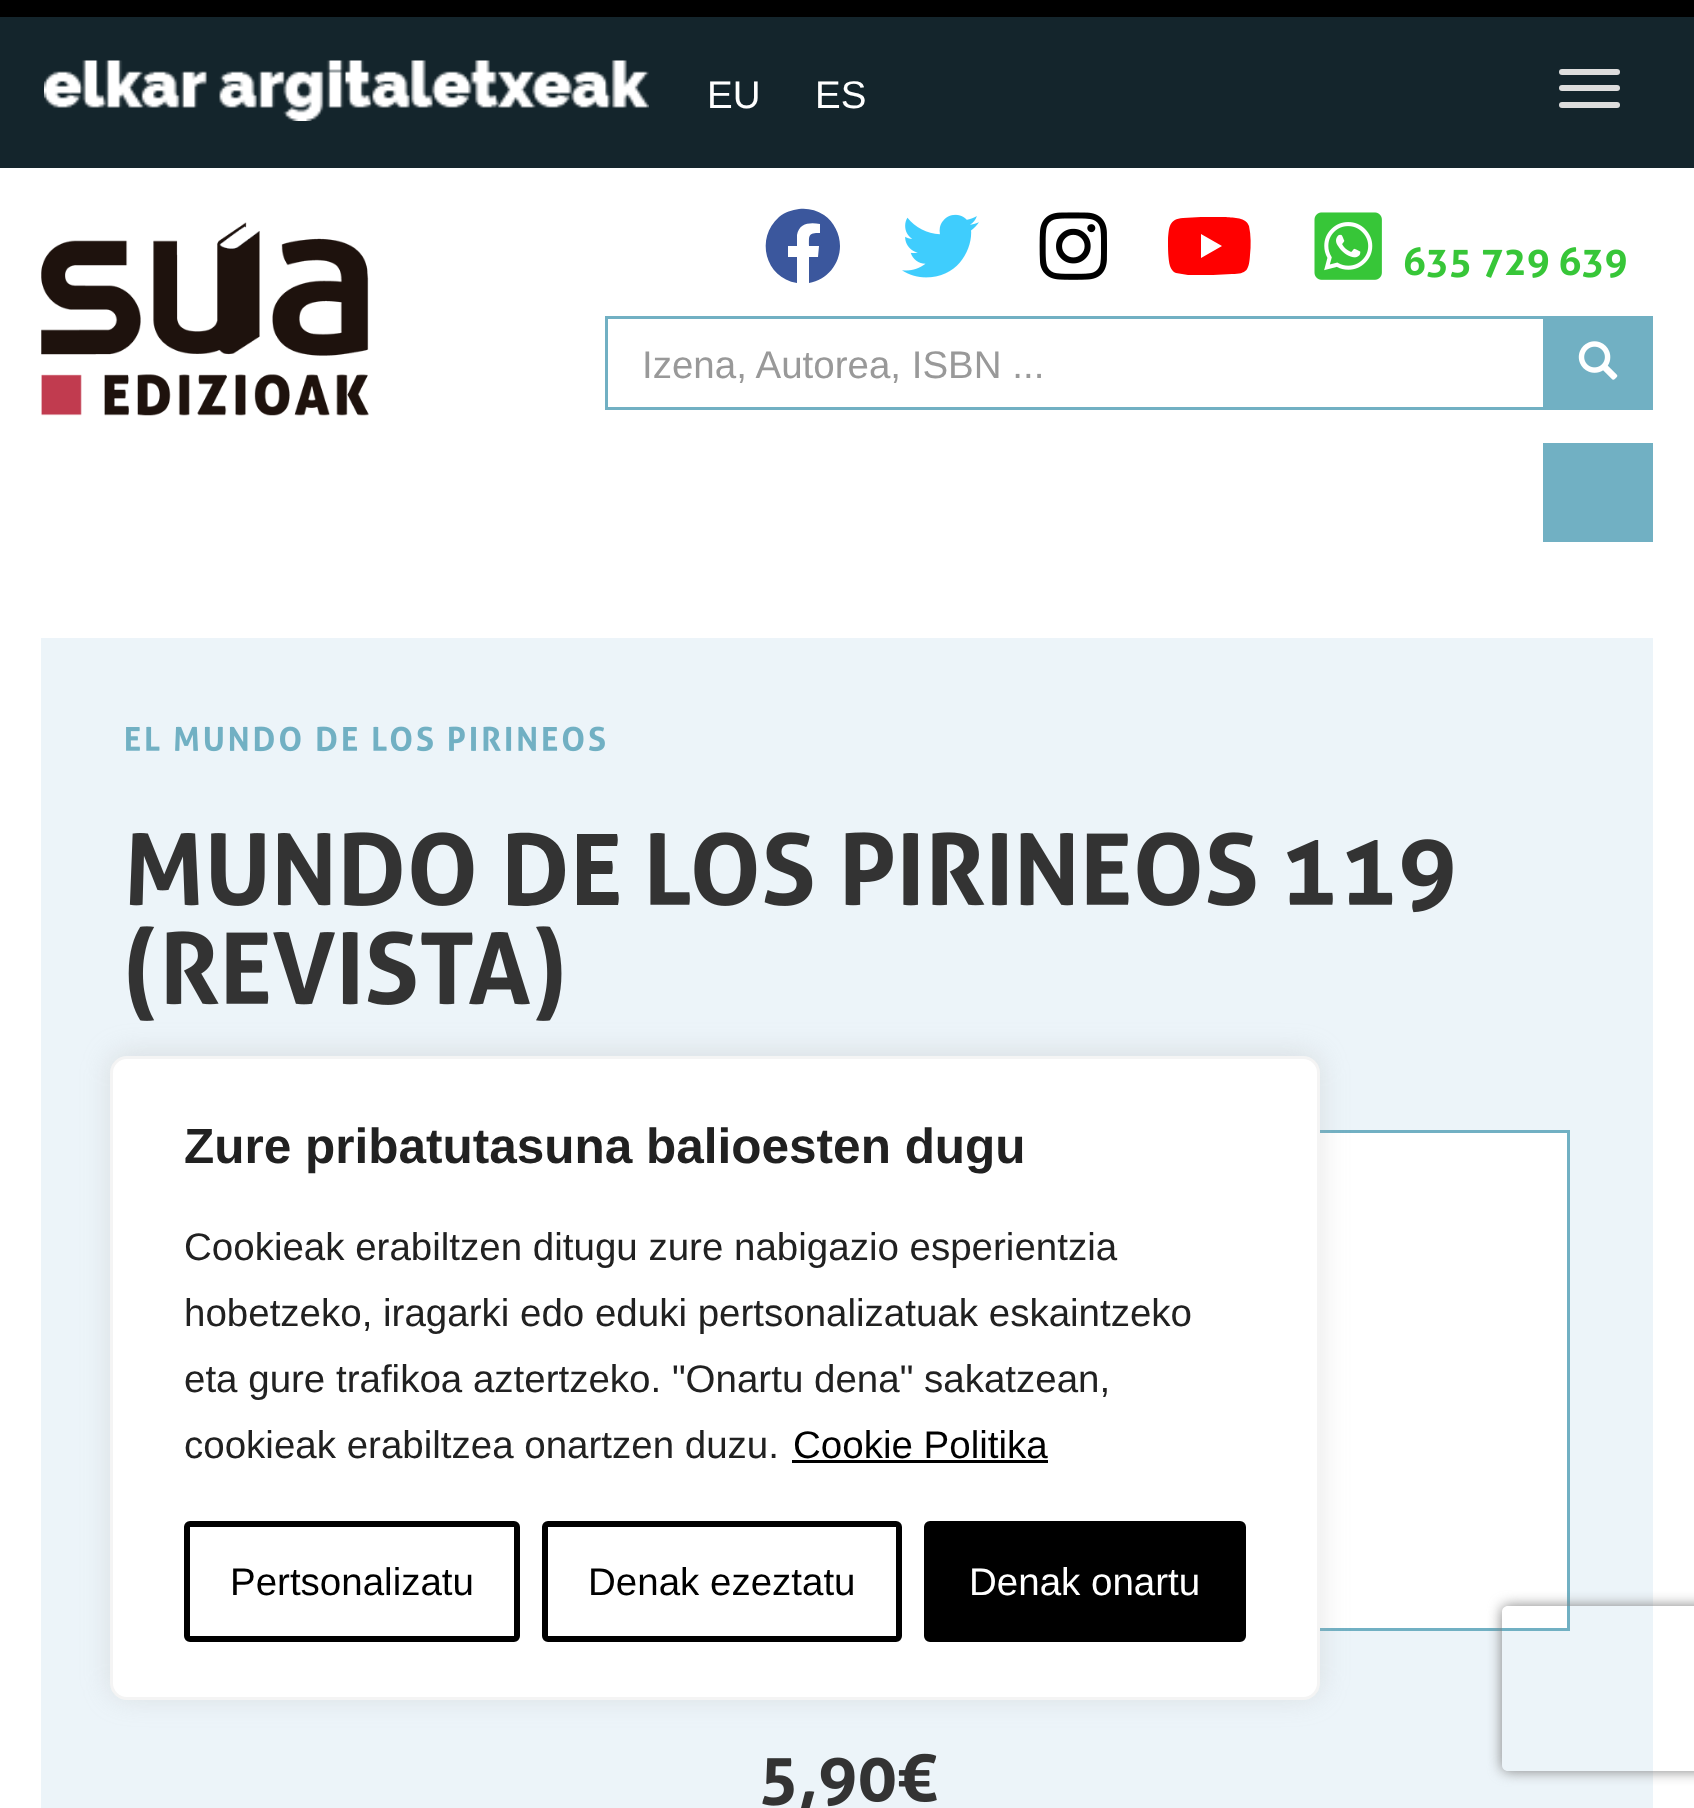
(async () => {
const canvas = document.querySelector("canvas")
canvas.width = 1694
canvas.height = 1808
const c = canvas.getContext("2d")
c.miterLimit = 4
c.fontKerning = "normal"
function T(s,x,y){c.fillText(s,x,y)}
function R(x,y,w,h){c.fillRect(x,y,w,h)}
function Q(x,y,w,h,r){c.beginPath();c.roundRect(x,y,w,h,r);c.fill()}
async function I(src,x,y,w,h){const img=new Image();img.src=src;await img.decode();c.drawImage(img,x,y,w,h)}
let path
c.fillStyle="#fff"
R(0,0,1694,1808)
c.fillStyle="#14252c"
R(0,17,1694,151)
c.fillStyle="#000"
R(0,0,1694,17)
await I("1.png",44,60,605,61)
c.font="38.5px Liberation Sans"
c.fillStyle="#fff"
T("EU",707,108)
T("ES",815,108)
c.fillStyle="#ddd"
Q(1559,69,61,6,3)
Q(1559,85,61,6,3)
Q(1559,102,61,6,3)
await I("2.png",41,222,328,194)
c.fillStyle="#3b579d"
path = new Path2D("M840 246c0 18-13 34-31 37v-26h9l1-11h-10c0-11-1-13 11-13v-9c-10-2-21-1-23 11v11h-9v11h9v26c-32-5-42-45-18-66c6-5 13-7 20-8c9-1 17 1 25 6c10 7 16 19 16 31z")
c.fill(path)
await I("3.png",902,214,77,64)
await I("4.png",1039,212,68,68)
c.fillStyle="#f00"
path = new Path2D("M1249 226c2 9 2 20 1 29c-1 15-3 19-18 19l-19 1h-25c-4-1-8-1-12-2c-3-1-5-4-6-7c-2-7-2-18-2-26c1-13 1-21 15-22l18-1h25c8 1 20 0 23 9zm-48 32l21-12l-21-12z")
c.fill(path)
await I("5.png",1314,212,68,68)
await I("6.png",1404,247,222,31)
c.strokeStyle="#71b0c3"
c.lineWidth=3
c.strokeRect(606.5,317.5,938,91)
c.fillStyle="#999"
T("Izena, Autorea, ISBN ...",642,378)
c.fillStyle="#71b0c3"
R(1546,316,107,94)
await I("7.png",1578,341,40,39)
R(1543,443,110,99)
c.fillStyle="#ecf4f9"
R(41,638,1612,1170)
await I("8.png",126,726,479,26)
await I("9.png",129,832,345,74)
c.fillStyle="#333"
path = new Path2D("M508 834c28-4 57-1 57 36c0 36-29 38-57 35zm14 59c18 2 27-5 27-24c0-18-9-26-27-24zm55-59h40c1 4 1 8 0 12h-26v15h21c1 4 1 9 0 13h-21v18h27c1 4 1 9 0 13h-41z")
c.fill(path)
await I("10.png",650,832,163,74)
await I("11.png",845,832,411,74)
await I("12.png",1287,839,166,74)
await I("13.png",128,926,434,95)
c.fillStyle="#fff"
R(1320,1133,247,495)
c.strokeRect(125.5,1131.5,1443,498)
await I("14.png",762,1753,175,55)
c.fillStyle="#acabab4d"
c.filter="blur(14px)"
c.beginPath()
c.roundRect(110,1053,1210,644,17)
c.fill()
c.filter="none"
c.fillStyle="#fff"
c.beginPath()
c.roundRect(111.5,1057.5,1207,641,15.5)
c.fill()
c.strokeStyle="#f4f4f4"
c.stroke()
c.font="bold 49.5px Liberation Sans"
c.fillStyle="#212121"
T("Zure pribatutasuna balioesten dugu",184,1163)
c.font="38.5px Liberation Sans"
T("Cookieak erabiltzen ditugu zure nabigazio esperientzia",184,1260)
T("hobetzeko, iragarki edo eduki pertsonalizatuak eskaintzeko",184,1326)
T("eta gure trafikoa aztertzeko. \"Onartu dena\" sakatzean,",184,1392)
T("cookieak erabiltzea onartzen duzu.",184,1458)
c.fillStyle="#000"
T("Cookie Politika",793,1458)
R(792,1460,256,3)
c.beginPath()
c.roundRect(187,1524,330,115,3)
c.strokeStyle="#000"
c.lineWidth=6
c.stroke()
T("Pertsonalizatu",230,1595)
c.beginPath()
c.roundRect(545,1524,354,115,3)
c.stroke()
T("Denak ezeztatu",588,1595)
c.beginPath()
c.roundRect(927,1524,316,115,3)
c.fill()
c.stroke()
c.fillStyle="#fff"
T("Denak onartu",969,1595)
c.save()
path = new Path2D("M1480 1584h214v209h-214zm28 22h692c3.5 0 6 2.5 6 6v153c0 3.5-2.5 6-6 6h-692c-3.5 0-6-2.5-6-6v-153c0-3.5 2.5-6 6-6z")
c.clip(path,"evenodd")
c.fillStyle="#808080"
c.filter="blur(7px)"
c.beginPath()
c.roundRect(1502,1606,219,165,6)
c.fill()
c.filter="none"
c.restore()
})()
